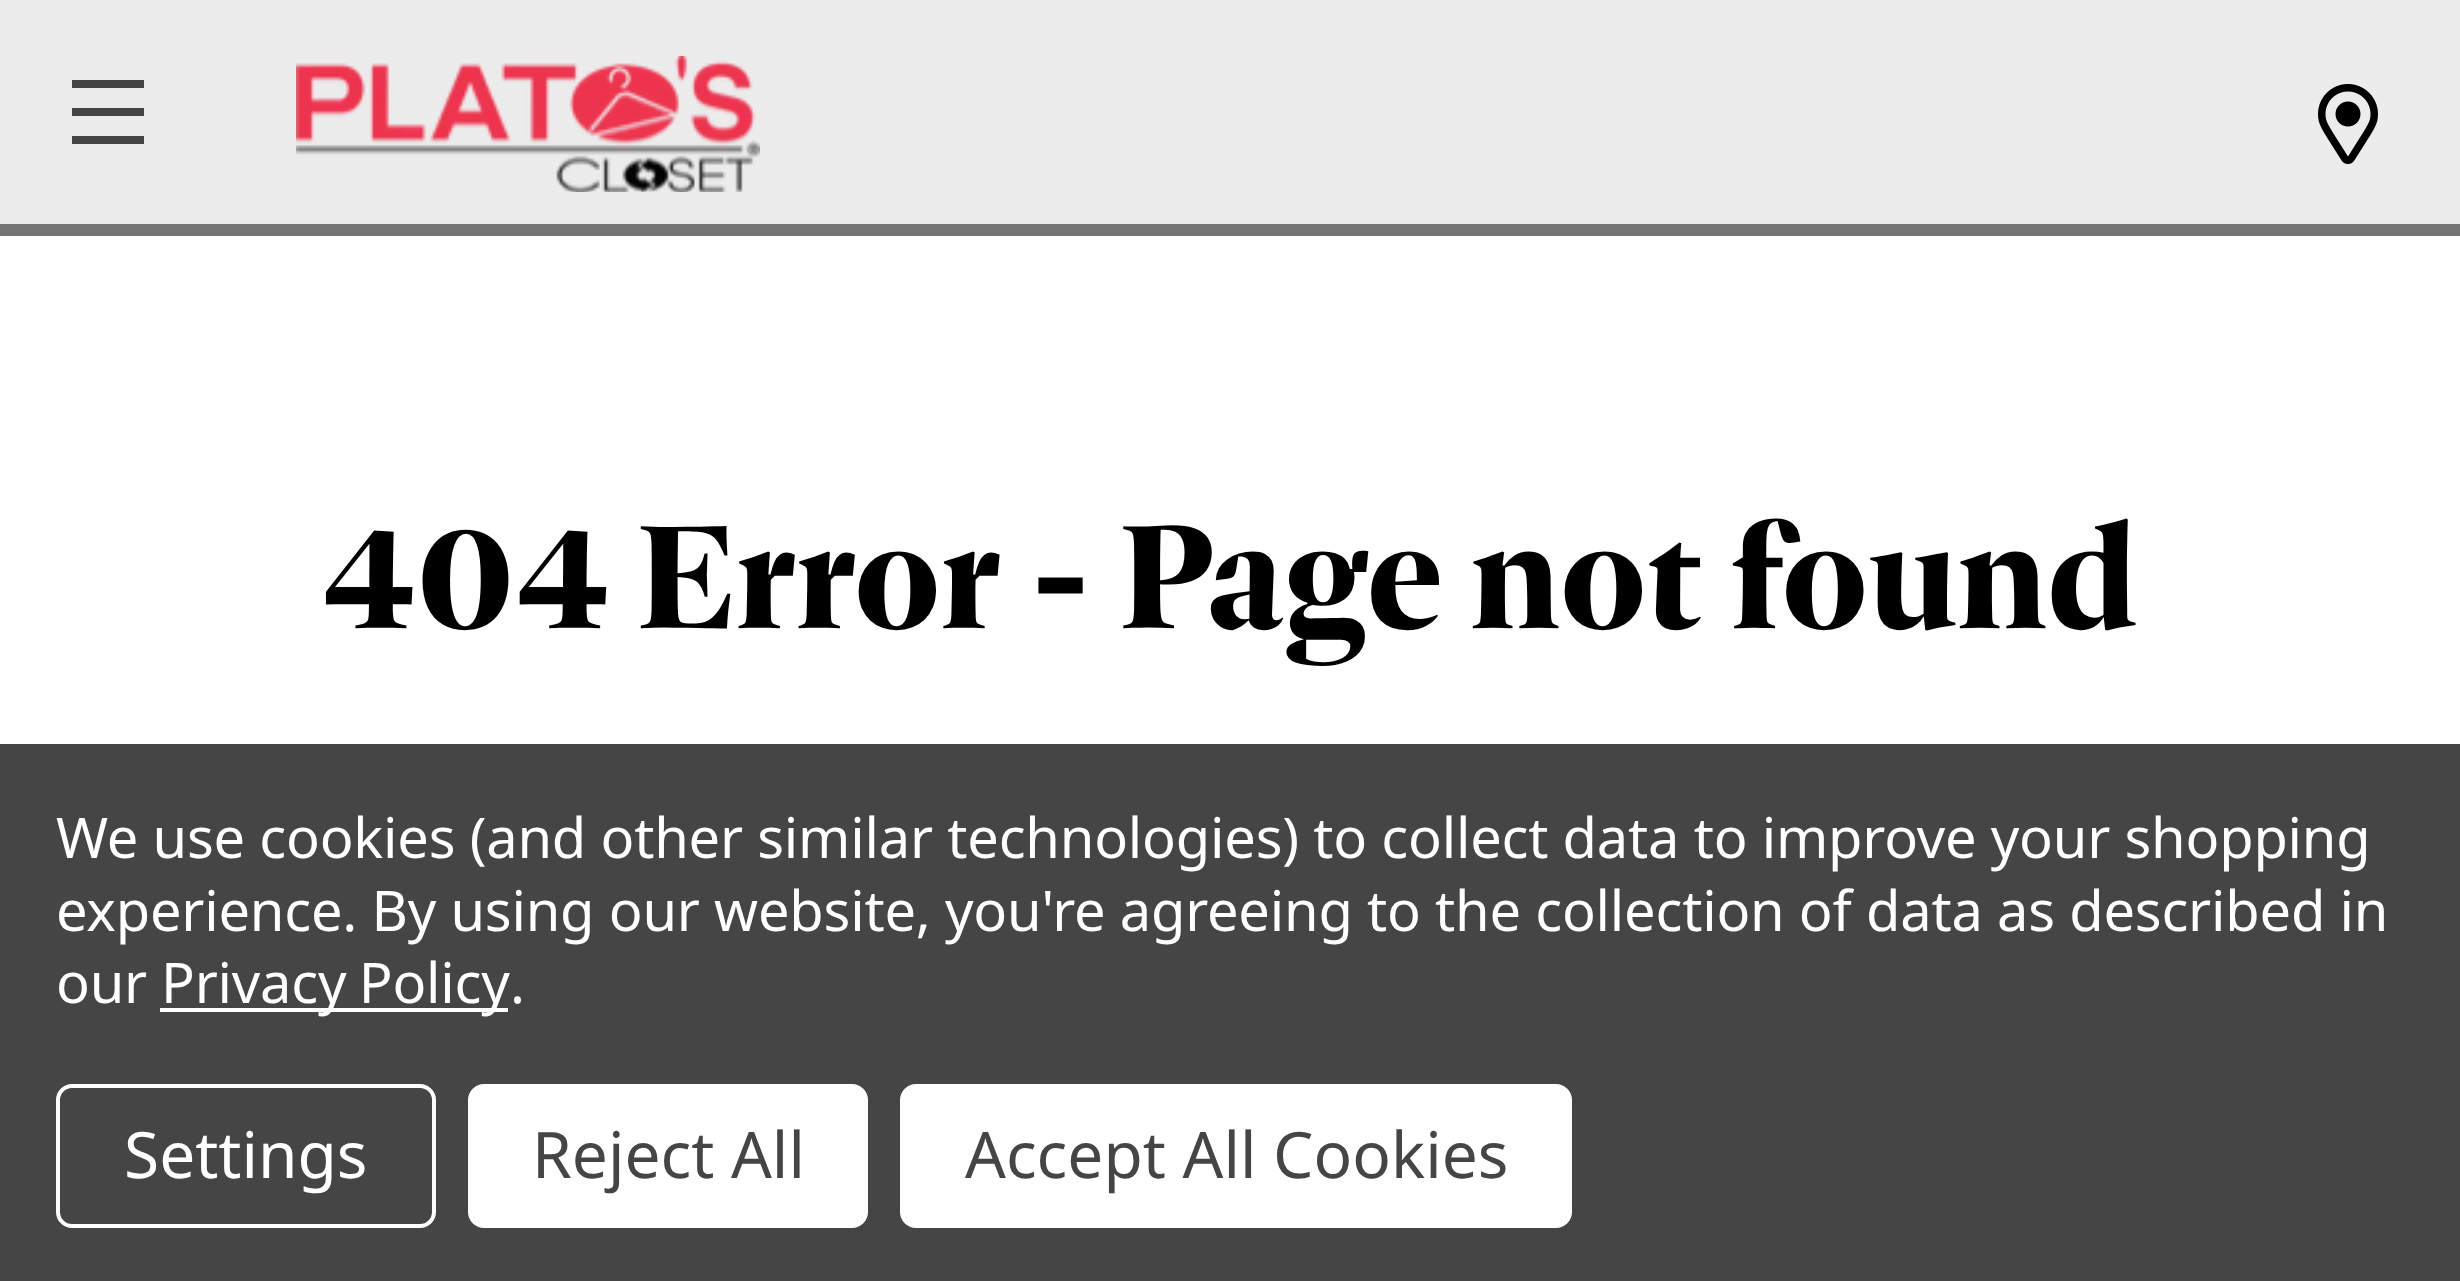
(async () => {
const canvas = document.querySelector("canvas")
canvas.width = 2460
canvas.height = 1281
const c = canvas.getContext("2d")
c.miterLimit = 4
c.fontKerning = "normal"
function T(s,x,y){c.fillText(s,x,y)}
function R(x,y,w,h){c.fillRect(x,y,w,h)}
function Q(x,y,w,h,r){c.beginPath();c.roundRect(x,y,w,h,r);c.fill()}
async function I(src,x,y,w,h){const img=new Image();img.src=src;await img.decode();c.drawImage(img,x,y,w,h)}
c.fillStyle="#fff"
R(0,0,2460,1281)
c.fillStyle="#ececec"
R(0,0,2460,224)
c.fillStyle="#757575"
R(0,224,2460,12)
c.fillStyle="#444"
R(72,108,72,8)
R(72,80,72,8)
R(72,136,72,8)
await I("1.png",296,56,464,136)
await I("2.png",2318,84,60,81)
c.font="bold 152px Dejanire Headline"
c.fillStyle="#000"
T("404 Error - Page not found",322,628)
c.fillStyle="#454545"
R(0,744,2460,537)
c.letterSpacing="-0.2px"
c.font="56px Noto Sans"
c.fillStyle="#fff"
T("We use cookies (and other similar technologies) to collect data to improve your shopping",56,858)
T("experience. By using our website, you're agreeing to the collection of data as described in",56,931)
T("our",56,1003)
R(160,1008,348,4)
c.wordSpacing="-2px"
T("Privacy Policy",161,1003)
c.wordSpacing="0px"
T(".",510,1003)
c.beginPath()
c.roundRect(58,1086,376,140,14)
c.strokeStyle="#fff"
c.lineWidth=4
c.stroke()
c.letterSpacing="0px"
c.font="64px Noto Sans"
T("Settings",124,1178)
Q(468,1084,400,144,16)
c.fillStyle="#454545"
T("Reject All",532,1178)
c.fillStyle="#fff"
Q(900,1084,672,144,16)
c.fillStyle="#454545"
T("Accept All Cookies",965,1178)
})()
